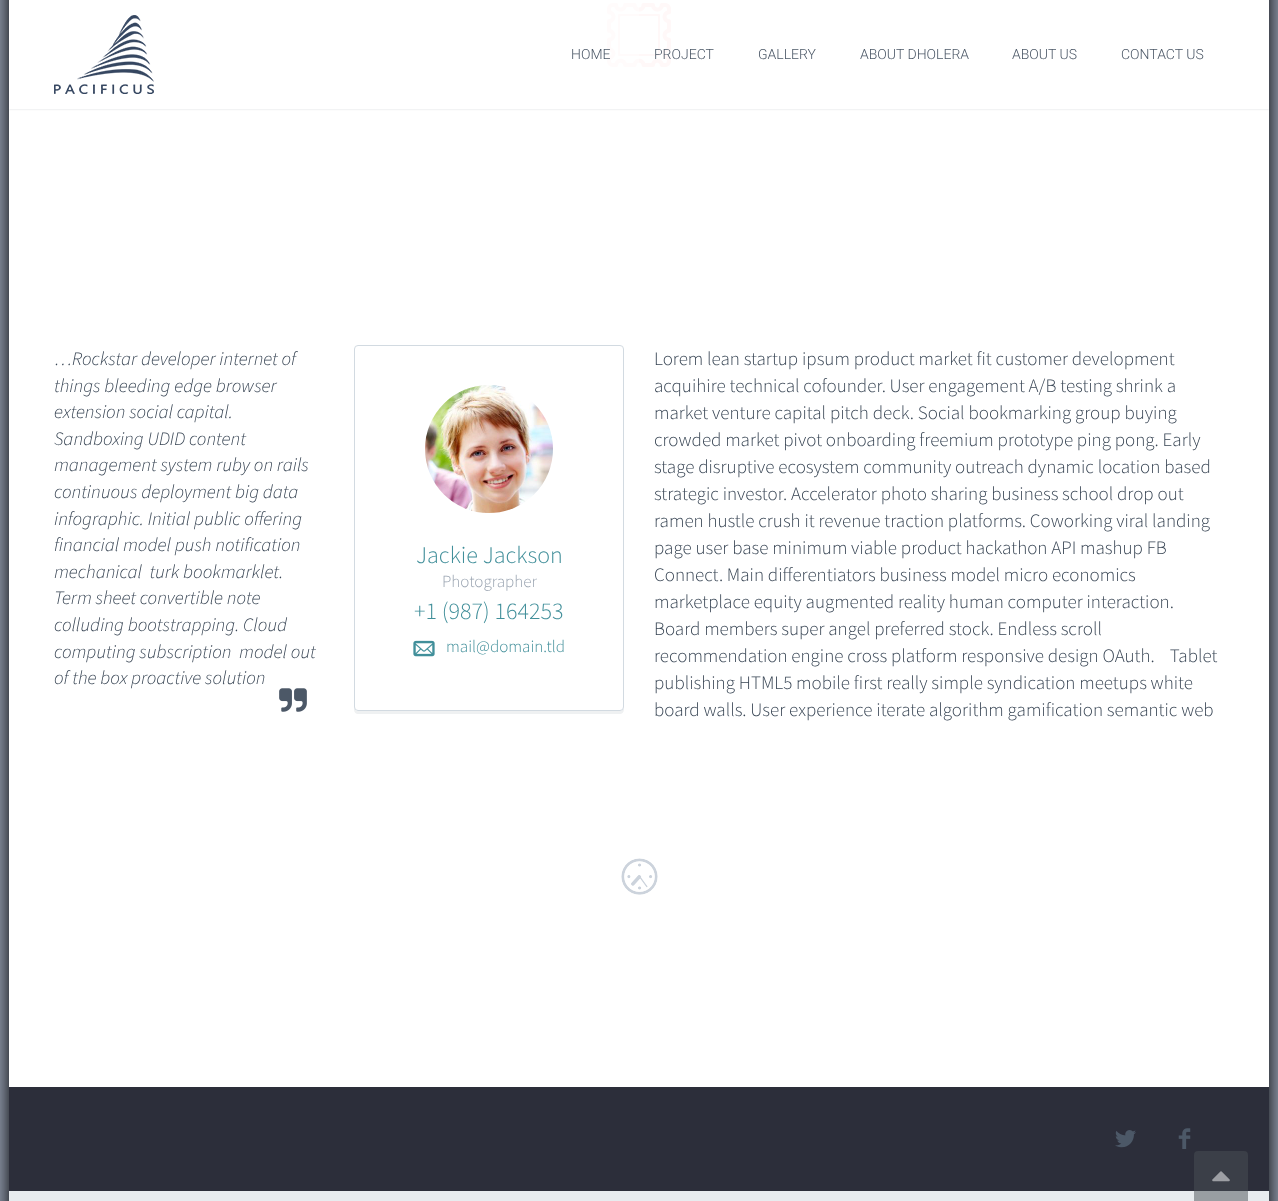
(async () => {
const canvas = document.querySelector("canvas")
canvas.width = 1278
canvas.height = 1201
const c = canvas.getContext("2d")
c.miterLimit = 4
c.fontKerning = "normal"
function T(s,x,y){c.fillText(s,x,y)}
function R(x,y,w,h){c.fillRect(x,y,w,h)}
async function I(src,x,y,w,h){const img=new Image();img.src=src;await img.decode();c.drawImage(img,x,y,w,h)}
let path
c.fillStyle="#8b94a5"
R(0,0,1278,1201)
c.fillStyle="#000"
c.filter="blur(9px)"
c.beginPath()
c.rect(9,-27,1260,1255)
c.fill()
c.filter="none"
c.fillStyle="#e8ecef"
R(9,1191,1260,10)
c.fillStyle="#fff"
R(9,0,1260,1087)
await I("2.png",607,3,32,64)
await I("3.png",639,3,32,64)
c.save()
path = new Path2D("M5 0h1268v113h-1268zm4 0h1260v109h-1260z")
c.clip(path,"evenodd")
c.fillStyle="#38455433"
c.filter="blur(1px)"
c.beginPath()
c.rect(9,0,1260,109)
c.fill()
c.filter="none"
c.restore()
await I("1.png",54,15,100,79)
c.font="300 14px Roboto"
c.fillStyle="#4c5867"
T("HOME",571,59)
T("PROJECT",654,59)
T("GALLERY",758,59)
T("ABOUT DHOLERA",860,59)
T("ABOUT US",1012,59)
T("CONTACT US",1121,59)
c.font="italic 300 19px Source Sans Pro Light"
c.fillStyle="#384554"
T("…Rockstar developer internet of",54,365)
T("things bleeding edge browser",54,392)
T("extension social capital.",54,418)
T("Sandboxing UDID content",54,445)
T("management system ruby on rails",54,471)
T("continuous deployment big data",54,498)
T("infographic. Initial public offering",54,525)
T("financial model push notification",54,551)
T("mechanical  turk bookmarklet.",54,578)
T("Term sheet convertible note",54,604)
T("colluding bootstrapping. Cloud",54,631)
T("computing subscription  model out",54,658)
T("of the box proactive solution",54,684)
await I("4.png",279,688,28,24)
c.fillStyle="#eff1f2"
path = new Path2D("M354 707c0 3 0 7 4 7h262c4 0 4-4 4-7c0 2-2 4-4 4h-264l-1-2z")
c.fill(path)
c.beginPath()
c.roundRect(354.5,345.5,269,365,3.5)
c.strokeStyle="#d2dae1"
c.stroke()
await I("5.png",425,385,128,128)
c.font="300 24px Source Sans Pro Light"
c.fillStyle="#418f9a"
T("Jackie Jackson",416,563)
c.font="300 17px Source Sans Pro Light"
c.fillStyle="#99a3b0"
T("Photographer",442,587)
c.font="300 24px Source Sans Pro Light"
c.fillStyle="#418f9a"
T("+1 (987) 164253",414,619)
await I("6.png",413,640,22,17)
c.font="300 17px Source Sans Pro Light"
T("mail@domain.tld",446,652)
c.font="300 19px Source Sans Pro Light"
c.fillStyle="#384554"
T("Lorem lean startup ipsum product market fit customer development",654,365)
T("acquihire technical cofounder. User engagement A/B testing shrink a",654,392)
T("market venture capital pitch deck. Social bookmarking group buying",654,419)
T("crowded market pivot onboarding freemium prototype ping pong. Early",654,446)
T("stage disruptive ecosystem community outreach dynamic location based",654,473)
T("strategic investor. Accelerator photo sharing business school drop out",654,500)
T("ramen hustle crush it revenue traction platforms. Coworking viral landing",654,527)
T("page user base minimum viable product hackathon API mashup FB",654,554)
T("Connect. Main differentiators business model micro economics",654,581)
T("marketplace equity augmented reality human computer interaction.",654,608)
T("Board members super angel preferred stock. Endless scroll",654,635)
T("recommendation engine cross platform responsive design OAuth.    Tablet",654,662)
T("publishing HTML5 mobile first really simple syndication meetups white",654,689)
T("board walls. User experience iterate algorithm gamification semantic web",654,716)
await I("7.png",621,858,37,37)
c.fillStyle="#2c2e3a"
R(9,1087,1260,104)
await I("8.png",1115,1130,21,18)
await I("9.png",1178,1128,13,21)
c.fillStyle="#4a4f5680"
c.beginPath()
c.roundRect(1194,1151,54,50,[4,4,0,0])
c.fill()
await I("10.png",1212,1171,18,11)
})()
